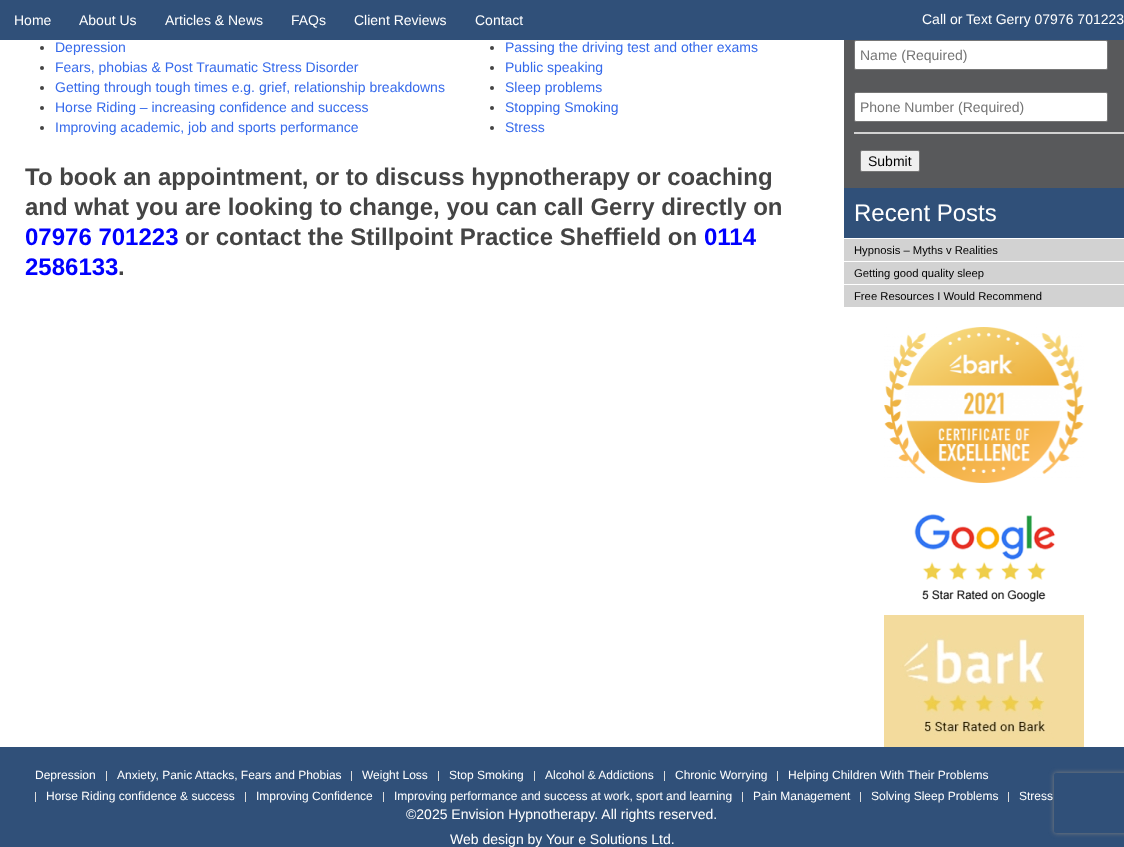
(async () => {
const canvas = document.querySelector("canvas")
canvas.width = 1124
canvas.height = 847
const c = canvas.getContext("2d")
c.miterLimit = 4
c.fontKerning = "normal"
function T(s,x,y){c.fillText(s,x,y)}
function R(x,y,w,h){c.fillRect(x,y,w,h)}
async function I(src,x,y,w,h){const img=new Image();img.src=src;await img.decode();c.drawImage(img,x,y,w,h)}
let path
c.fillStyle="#fff"
R(0,0,1124,847)
c.fillStyle="#305079"
R(0,0,1124,40)
c.font="14px Liberation Sans"
c.fillStyle="#fff"
T("Home",14,25)
T("About Us",79,25)
T("Articles & News",165,25)
T("FAQs",291,25)
T("Client Reviews",354,25)
T("Contact",475,25)
T("Call or Text Gerry 07976 701223",922,24)
c.fillStyle="#444"
c.beginPath()
c.arc(42,48,2,0,7)
c.fill()
c.fillStyle="#366aeb"
T("Depression",55,52)
c.fillStyle="#444"
c.beginPath()
c.arc(42,68,2,0,7)
c.fill()
c.fillStyle="#366aeb"
T("Fears, phobias & Post Traumatic Stress Disorder",55,72)
c.fillStyle="#444"
c.beginPath()
c.arc(42,88,2,0,7)
c.fill()
c.fillStyle="#366aeb"
T("Getting through tough times e.g. grief, relationship breakdowns",55,92)
c.fillStyle="#444"
c.beginPath()
c.arc(42,108,2,0,7)
c.fill()
c.fillStyle="#366aeb"
T("Horse Riding – increasing confidence and success",55,112)
c.fillStyle="#444"
c.beginPath()
c.arc(42,128,2,0,7)
c.fill()
c.fillStyle="#366aeb"
T("Improving academic, job and sports performance",55,132)
c.fillStyle="#444"
c.beginPath()
c.arc(492,48,2,0,7)
c.fill()
c.fillStyle="#366aeb"
T("Passing the driving test and other exams",505,52)
c.fillStyle="#444"
c.beginPath()
c.arc(492,68,2,0,7)
c.fill()
c.fillStyle="#366aeb"
T("Public speaking",505,72)
c.fillStyle="#444"
c.beginPath()
c.arc(492,88,2,0,7)
c.fill()
c.fillStyle="#366aeb"
T("Sleep problems",505,92)
c.fillStyle="#444"
c.beginPath()
c.arc(492,108,2,0,7)
c.fill()
c.fillStyle="#366aeb"
T("Stopping Smoking",505,112)
c.fillStyle="#444"
c.beginPath()
c.arc(492,128,2,0,7)
c.fill()
c.fillStyle="#366aeb"
T("Stress",505,132)
c.font="bold 24px Liberation Sans"
c.fillStyle="#444"
T("To book an appointment, or to discuss hypnotherapy or coaching",25,185)
T("and what you are looking to change, you can call Gerry directly on",25,215)
c.fillStyle="#00f"
T("07976 701223",25,245)
c.fillStyle="#444"
T("or contact the Stillpoint Practice Sheffield on",185,245)
c.fillStyle="#00f"
T("0114",704,245)
T("2586133",25,275)
c.fillStyle="#444"
T(".",118,275)
c.fillStyle="#58595b"
R(844,40,280,148)
c.fillStyle="#fff"
c.beginPath()
c.roundRect(854.5,40.5,253,29,1.5)
c.fill()
c.strokeStyle="#767676"
c.stroke()
c.font="14px Liberation Sans"
c.fillStyle="#757575"
T("Name (Required)",860,60)
c.fillStyle="#fff"
c.beginPath()
c.roundRect(854.5,92.5,253,29,1.5)
c.fill()
c.stroke()
c.fillStyle="#757575"
T("Phone Number (Required)",860,112)
c.fillStyle="#d2d2d2"
R(854,132,270,2)
c.fillStyle="#305079"
R(0,747,1124,100)
c.save()
path = new Path2D("M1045 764h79v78h-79zm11 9h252c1 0 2 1 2 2v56c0 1-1 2-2 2h-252c-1 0-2-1-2-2v-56c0-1 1-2 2-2z")
c.clip(path,"evenodd")
c.fillStyle="#808080"
c.filter="blur(2.5px)"
c.beginPath()
c.roundRect(1054,773,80,60,2)
c.fill()
c.filter="none"
c.restore()
c.fillStyle="#efefef"
c.beginPath()
c.roundRect(860.5,150.5,59,21,1.5)
c.fill()
c.stroke()
c.fillStyle="#000"
T("Submit",868,166)
c.fillStyle="#305079"
R(844,188,280,50)
c.font="24px Liberation Sans"
c.fillStyle="#fff"
T("Recent Posts",854,221)
c.fillStyle="#d2d2d2"
R(844,239,280,22)
c.font="11.25px Liberation Sans"
c.fillStyle="#000"
T("Hypnosis – Myths v Realities",854,254)
c.fillStyle="#d2d2d2"
R(844,262,280,22)
c.fillStyle="#000"
T("Getting good quality sleep",854,277)
c.fillStyle="#d2d2d2"
R(844,285,280,22)
c.fillStyle="#000"
T("Free Resources I Would Recommend",854,300)
await I("1.png",884,327,200,156)
await I("2.png",914,514,142,88)
await I("3.png",884,615,200,132)
c.font="12px Liberation Sans"
c.fillStyle="#fff"
T("Depression",35,779)
c.fillStyle="#ddd"
R(106,771,1,10)
c.fillStyle="#fff"
T("Anxiety, Panic Attacks, Fears and Phobias",117,779)
c.fillStyle="#ddd"
R(351,771,1,10)
c.fillStyle="#fff"
T("Weight Loss",362,779)
c.fillStyle="#ddd"
R(438,771,1,10)
c.fillStyle="#fff"
T("Stop Smoking",449,779)
c.fillStyle="#ddd"
R(534,771,1,10)
c.fillStyle="#fff"
T("Alcohol & Addictions",545,779)
c.fillStyle="#ddd"
R(664,771,1,10)
c.fillStyle="#fff"
T("Chronic Worrying",675,779)
c.fillStyle="#ddd"
R(777,771,1,10)
c.fillStyle="#fff"
T("Helping Children With Their Problems",788,779)
c.fillStyle="#ddd"
R(35,792,1,10)
c.fillStyle="#fff"
T("Horse Riding confidence & success",46,800)
c.fillStyle="#ddd"
R(245,792,1,10)
c.fillStyle="#fff"
T("Improving Confidence",256,800)
c.fillStyle="#ddd"
R(383,792,1,10)
c.fillStyle="#fff"
T("Improving performance and success at work, sport and learning",394,800)
c.fillStyle="#ddd"
R(742,792,1,10)
c.fillStyle="#fff"
T("Pain Management",753,800)
c.fillStyle="#ddd"
R(860,792,1,10)
c.fillStyle="#fff"
T("Solving Sleep Problems",871,800)
c.fillStyle="#ddd"
R(1008,792,1,10)
c.fillStyle="#fff"
T("Stress",1019,800)
c.font="14px Liberation Sans"
T("©2025 Envision Hypnotherapy. All rights reserved.",406,819)
T("Web design by Your e Solutions Ltd.",450,844)
})()
